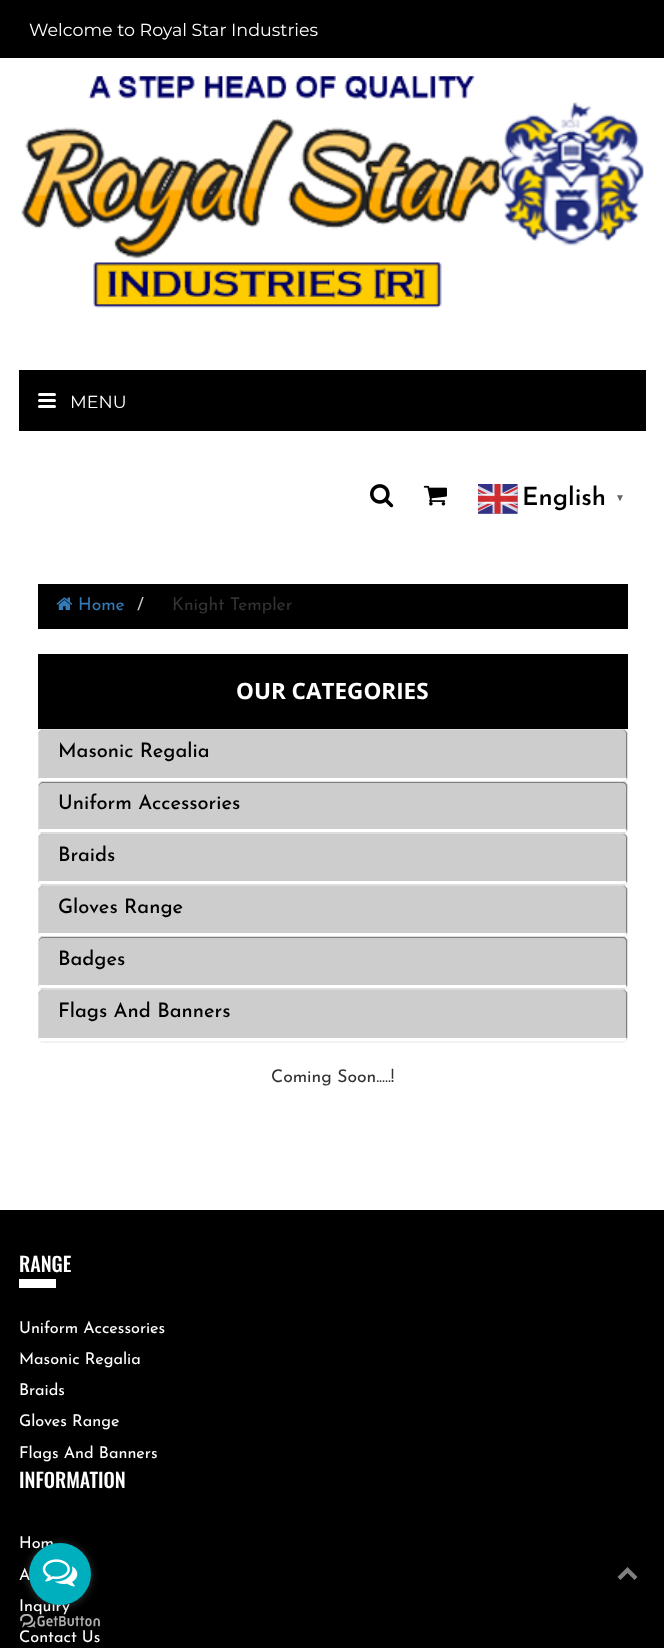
(async () => {
const canvas = document.querySelector("canvas")
canvas.width = 664
canvas.height = 1648
const c = canvas.getContext("2d")
c.miterLimit = 4
c.fontKerning = "normal"
function T(s,x,y){c.fillText(s,x,y)}
function R(x,y,w,h){c.fillRect(x,y,w,h)}
function Q(x,y,w,h,r){c.beginPath();c.roundRect(x,y,w,h,r);c.fill()}
async function I(src,x,y,w,h){const img=new Image();img.src=src;await img.decode();c.drawImage(img,x,y,w,h)}
let path
c.fillStyle="#fff"
R(0,0,664,1648)
c.fillStyle="#000"
R(0,0,664,58)
c.font="17.5px Montserrat"
c.fillStyle="#fff"
T("Welcome to Royal Star Industries",29,36)
await I("1.png",21,76,623,232)
c.fillStyle="#000"
R(19,370,627,61)
c.fillStyle="#fff"
Q(38,393,18,3,1.5)
Q(38,399,18,3,1.5)
Q(38,405,18,3,1.5)
T("MENU",70,408)
await I("2.png",370,484,24,24)
await I("3.png",423,485,24,21)
await I("4.png",478,484,40,30)
c.font="600 25px Josefin Sans"
c.fillStyle="#000"
T("English",522,505)
c.font="bold 10px Liberation Sans"
c.fillStyle="#666"
T("▼",615,501)
c.fillStyle="#000"
R(38,584,590,45)
await I("5.png",56,597,17,13)
c.font="17.5px Josefin Sans"
c.fillStyle="#337ab7"
T("Home",78,610)
c.fillStyle="#ccc"
T("/",137,610)
c.fillStyle="#333"
T("Knight Templer",172,610)
c.fillStyle="#000"
R(38,654,590,75)
c.font="bold 22.5px Open Sans"
c.fillStyle="#fff"
T("OUR CATEGORIES",236,699)
c.fillStyle="#0000000d"
c.filter="blur(0.5px)"
c.beginPath()
c.roundRect(38,730,590,53,5)
c.fill()
c.filter="none"
c.fillStyle="#817e7e"
c.beginPath()
c.roundRect(38.5,729.5,589,51,4.5)
c.fill()
c.strokeStyle="#ddd"
c.stroke()
c.fillStyle="#cdcdcd"
c.beginPath()
c.roundRect(39,730,587,50,[4,4,0,0])
c.fill()
c.fillStyle="#fff"
R(39,778,587,3)
c.font="500 20px Josefin Sans"
c.fillStyle="#000"
T("Masonic Regalia",58,757)
c.fillStyle="#0000000d"
c.filter="blur(0.5px)"
c.beginPath()
c.roundRect(38,783,590,51,5)
c.fill()
c.filter="none"
c.fillStyle="#817e7e"
c.beginPath()
c.roundRect(38.5,781.5,589,51,4.5)
c.fill()
c.stroke()
c.fillStyle="#cdcdcd"
c.beginPath()
c.roundRect(39,783,587,48,[4,4,0,0])
c.fill()
c.fillStyle="#fff"
R(39,829,587,3)
c.fillStyle="#000"
T("Uniform Accessories",58,809)
c.fillStyle="#0000000d"
c.filter="blur(0.5px)"
c.beginPath()
c.roundRect(38,834,590,52,5)
c.fill()
c.filter="none"
c.fillStyle="#817e7e"
c.beginPath()
c.roundRect(38.5,833.5,589,51,4.5)
c.fill()
c.stroke()
c.fillStyle="#cdcdcd"
c.beginPath()
c.roundRect(39,834,587,50,[4,4,0,0])
c.fill()
c.fillStyle="#fff"
R(39,881,587,3)
c.fillStyle="#000"
T("Braids",58,861)
c.fillStyle="#0000000d"
c.filter="blur(0.5px)"
c.beginPath()
c.roundRect(38,886,590,52,5)
c.fill()
c.filter="none"
c.fillStyle="#817e7e"
c.beginPath()
c.roundRect(38.5,885.5,589,50,4.5)
c.fill()
c.stroke()
c.fillStyle="#cdcdcd"
c.beginPath()
c.roundRect(39,886,587,49,[4,4,0,0])
c.fill()
c.fillStyle="#fff"
R(39,933,587,3)
c.fillStyle="#000"
T("Gloves Range",58,913)
c.fillStyle="#0000000d"
c.filter="blur(0.5px)"
c.beginPath()
c.roundRect(38,938,590,52,5)
c.fill()
c.filter="none"
c.fillStyle="#817e7e"
c.beginPath()
c.roundRect(38.5,936.5,589,52,4.5)
c.fill()
c.stroke()
c.fillStyle="#cdcdcd"
c.beginPath()
c.roundRect(39,938,587,50,[4,4,0,0])
c.fill()
c.fillStyle="#fff"
R(39,985,587,3)
c.fillStyle="#000"
T("Badges",58,965)
c.fillStyle="#0000000d"
c.filter="blur(0.5px)"
c.beginPath()
c.roundRect(38,990,590,53,5)
c.fill()
c.filter="none"
c.fillStyle="#817e7e"
c.beginPath()
c.roundRect(38.5,989.5,589,51,4.5)
c.fill()
c.stroke()
c.fillStyle="#cdcdcd"
c.beginPath()
c.roundRect(39,990,587,50,[4,4,0,0])
c.fill()
c.fillStyle="#fff"
R(39,1038,587,3)
c.fillStyle="#000"
T("Flags And Banners",58,1017)
c.font="17.5px Josefin Sans"
c.fillStyle="#333"
T("Coming Soon.....!",271,1082)
c.fillStyle="#000"
R(0,1210,664,438)
c.font="500 20px Oswald"
c.fillStyle="#fff"
T("RANGE",19,1272)
R(19,1279,37,9)
c.font="16.25px Josefin Sans"
T("Uniform Accessories",19,1333)
T("Masonic Regalia",19,1364)
T("Braids",19,1395)
T("Gloves Range",19,1426)
T("Flags And Banners",19,1458)
c.font="500 20px Oswald"
T("INFORMATION",19,1488)
c.font="16.25px Josefin Sans"
T("Hom",19,1548)
T("A",19,1580)
T("Inquiry",19,1611)
T("Contact Us",19,1642)
c.fillStyle="#808080"
path = new Path2D("M627.5 1567l10 10l-3 3l-7-7l-7 7l-3-3z")
c.fill(path)
await I("7.png",20,1614,80,14)
c.fillStyle="#88888866"
c.filter="blur(4.5px)"
c.beginPath()
c.roundRect(29,1544,62,62,31)
c.fill()
c.filter="none"
c.fillStyle="#00afbe"
c.beginPath()
c.arc(60,1574,31,0,7)
c.fill()
await I("6.png",42,1559,36,28)
})()
